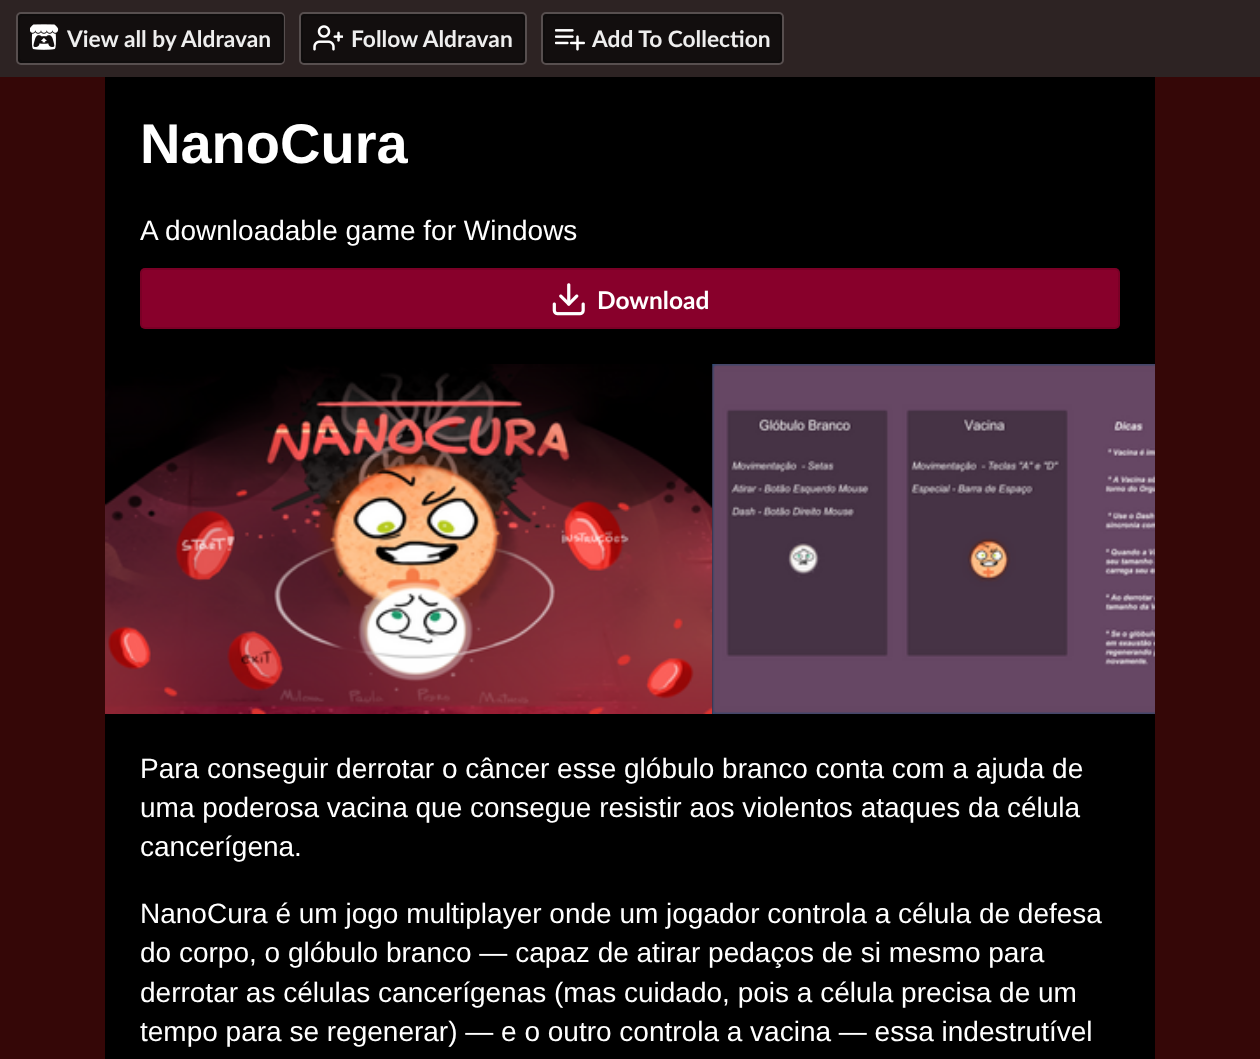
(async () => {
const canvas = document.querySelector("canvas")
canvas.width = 1260
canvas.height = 1059
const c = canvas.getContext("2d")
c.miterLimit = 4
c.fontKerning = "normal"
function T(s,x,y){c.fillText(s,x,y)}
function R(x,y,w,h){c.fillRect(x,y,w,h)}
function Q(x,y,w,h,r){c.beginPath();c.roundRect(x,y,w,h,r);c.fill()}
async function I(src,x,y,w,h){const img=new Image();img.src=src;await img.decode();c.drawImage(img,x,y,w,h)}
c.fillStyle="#350707"
R(0,0,1260,1059)
c.fillStyle="#2d2323"
R(0,0,1260,77)
c.beginPath()
c.roundRect(17,13,267,51,4)
c.strokeStyle="#574f4f"
c.lineWidth=2
c.stroke()
c.fillStyle="#00000099"
Q(18,14,266,49,4)
c.beginPath()
c.roundRect(19,15,264,47,3)
c.strokeStyle="#0a0a0a80"
c.stroke()
await I("1.png",30,24,29,26)
c.font="bold 22.75px Lato"
c.fillStyle="#eee"
T("View all by Aldravan",67,47)
c.beginPath()
c.roundRect(300,13,226,51,4)
c.strokeStyle="#574f4f"
c.stroke()
c.fillStyle="#00000099"
Q(301,14,224,49,4)
c.beginPath()
c.roundRect(302,15,222,47,3)
c.strokeStyle="#0a0a0a80"
c.stroke()
await I("2.png",313,25,30,26)
c.fillStyle="#eee"
T("Follow Aldravan",351,47)
c.beginPath()
c.roundRect(542,13,241,51,4)
c.strokeStyle="#574f4f"
c.stroke()
c.fillStyle="#00000099"
Q(543,14,239,49,4)
c.beginPath()
c.roundRect(544,15,237,47,3)
c.strokeStyle="#0a0a0a80"
c.stroke()
await I("3.png",555,29,30,22)
c.fillStyle="#eee"
T("Add To Collection",592,47)
c.fillStyle="#000"
R(105,77,1050,982)
c.font="bold 56px Liberation Sans"
c.fillStyle="#fff"
T("NanoCura",140,163)
c.font="28px Liberation Sans"
T("A downloadable game for Windows",140,240)
c.fillStyle="#88002b"
Q(140,268,980,61,5)
c.beginPath()
c.roundRect(141,269,978,59,4)
c.strokeStyle="#0000001a"
c.stroke()
await I("4.png",552,283,33,33)
c.font="bold 24.5px Lato"
c.fillStyle="#fff"
T("Download",597,309)
await I("5.png",105,364,608,350)
await I("6.png",712,364,443,350)
c.font="28px Liberation Sans"
T("Para conseguir derrotar o câncer esse glóbulo branco conta com a ajuda de",140,778)
T("uma poderosa vacina que consegue resistir aos violentos ataques da célula",140,817)
T("cancerígena.",140,856)
T("NanoCura é um jogo multiplayer onde um jogador controla a célula de defesa",140,923)
T("do corpo, o glóbulo branco — capaz de atirar pedaços de si mesmo para",140,962)
T("derrotar as células cancerígenas (mas cuidado, pois a célula precisa de um",140,1002)
T("tempo para se regenerar) — e o outro controla a vacina — essa indestrutível",140,1041)
})()
